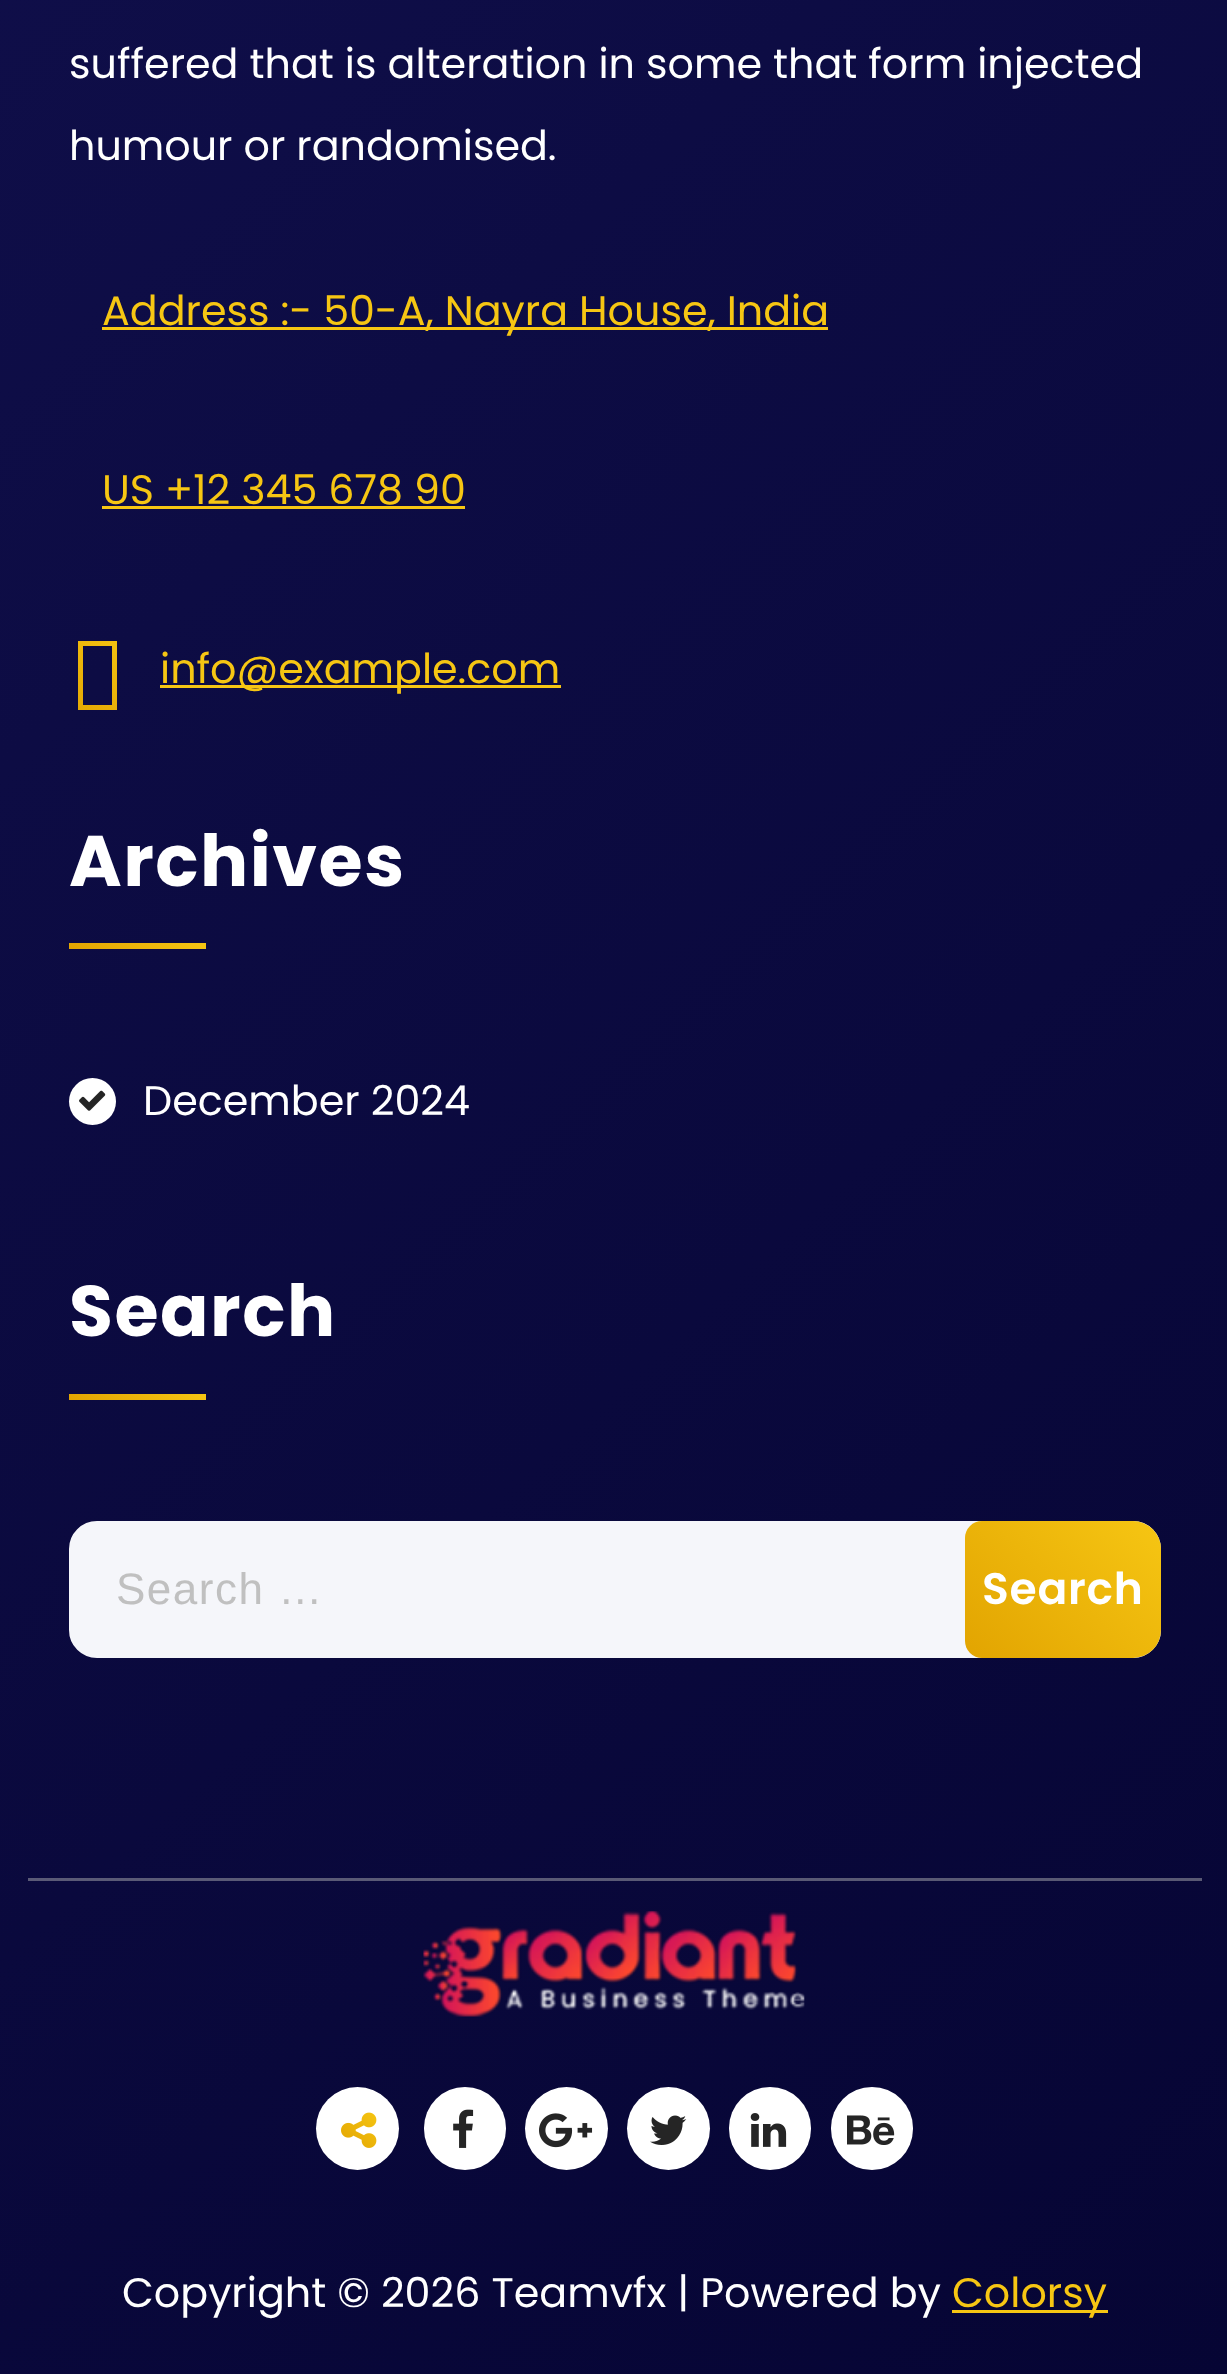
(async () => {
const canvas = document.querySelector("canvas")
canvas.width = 1227
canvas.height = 2374
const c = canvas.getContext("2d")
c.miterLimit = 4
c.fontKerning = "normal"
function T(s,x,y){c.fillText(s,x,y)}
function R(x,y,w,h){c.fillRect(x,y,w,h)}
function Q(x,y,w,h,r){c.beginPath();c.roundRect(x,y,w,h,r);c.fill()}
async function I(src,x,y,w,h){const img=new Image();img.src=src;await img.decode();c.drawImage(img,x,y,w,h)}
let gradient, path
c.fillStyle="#fff"
R(0,0,1227,2374)
gradient = c.createLinearGradient(-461,-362,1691,1946)
gradient.addColorStop(0,"#11104d")
gradient.addColorStop(1,"#060534")
c.fillStyle = gradient
R(0,0,1227,2374)
gradient = c.createLinearGradient(-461,-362,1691,1946)
gradient.addColorStop(0,"#5e5e7f")
gradient.addColorStop(1,"#585872")
c.fillStyle = gradient
R(28,1878,1174,3)
c.font="41.25px Poppins"
c.fillStyle="#fff"
T("suffered that is alteration in some that form injected",69,78)
T("humour or randomised.",69,160)
c.fillStyle="#f6c613"
R(102,327,726,3)
T("Address :- 50-A, Nayra House, India",102,325)
T("US +12 345 678 90",102,504)
R(102,506,363,3)
gradient = c.createLinearGradient(135,636,60,716)
gradient.addColorStop(0,"#f6c613")
gradient.addColorStop(1,"#e2a401")
c.fillStyle = gradient
path = new Path2D("M78 710v-69h39v69zm5-5h29v-59h-29z")
c.fill(path)
c.fillStyle="#f6c613"
R(160,685,401,3)
T("info@example.com",160,683)
c.letterSpacing="1.5px"
c.font="bold 71.5px Poppins"
c.fillStyle="#fff"
T("Archives",69,886)
gradient = c.createLinearGradient(171,910,104,982)
gradient.addColorStop(0,"#f6c613")
gradient.addColorStop(1,"#e2a401")
c.fillStyle = gradient
R(69,943,137,6)
c.fillStyle="#fff"
c.beginPath()
c.arc(92.5,1101.5,23.5,0,7)
c.fill()
await I("1.png",79,1090,27,21)
c.letterSpacing="0px"
c.font="41.25px Poppins"
T("December 2024",143,1115)
c.letterSpacing="1.5px"
c.font="bold 71.5px Poppins"
T("Search",69,1336)
gradient = c.createLinearGradient(171,1361,104,1433)
gradient.addColorStop(0,"#f6c613")
gradient.addColorStop(1,"#e2a401")
c.fillStyle = gradient
R(69,1394,137,6)
c.fillStyle="#f5f6fa"
c.beginPath()
c.roundRect(70.5,1522.5,1089,134,26.5)
c.fill()
c.strokeStyle="#f5f6fa"
c.lineWidth=3
c.stroke()
c.font="44px Liberation Sans"
c.fillStyle="#c0c0c0"
T("Search …",116,1604)
gradient = c.createLinearGradient(1143,1504,983,1675)
gradient.addColorStop(0,"#f6c613")
gradient.addColorStop(1,"#e2a401")
c.fillStyle = gradient
c.beginPath()
c.roundRect(965,1521,196,137,[17,28,28,17])
c.fill()
c.letterSpacing="0.75px"
c.font="600 44px Poppins"
c.fillStyle="#fff"
T("Search",982,1604)
await I("2.png",423,1910,382,107)
c.beginPath()
c.arc(357.5,2128.5,41.5,0,7)
c.fill()
await I("3.png",341,2112,36,36)
Q(424,2087,82,83,41)
await I("4.png",453,2109,21,39)
c.beginPath()
c.arc(566.5,2128.5,41.5,0,7)
c.fill()
await I("5.png",539,2113,54,35)
c.beginPath()
c.arc(668.5,2128.5,41.5,0,7)
c.fill()
await I("6.png",650,2115,37,30)
Q(729,2087,82,83,41)
await I("7.png",750,2113,37,34)
Q(831,2087,82,83,41)
await I("8.png",847,2115,48,30)
c.letterSpacing="0px"
c.font="41.25px Poppins"
T("Copyright © 2026 Teamvfx | Powered by",122,2307)
c.fillStyle="#f6c613"
R(952,2310,156,3)
T("Colorsy",952,2307)
})()
